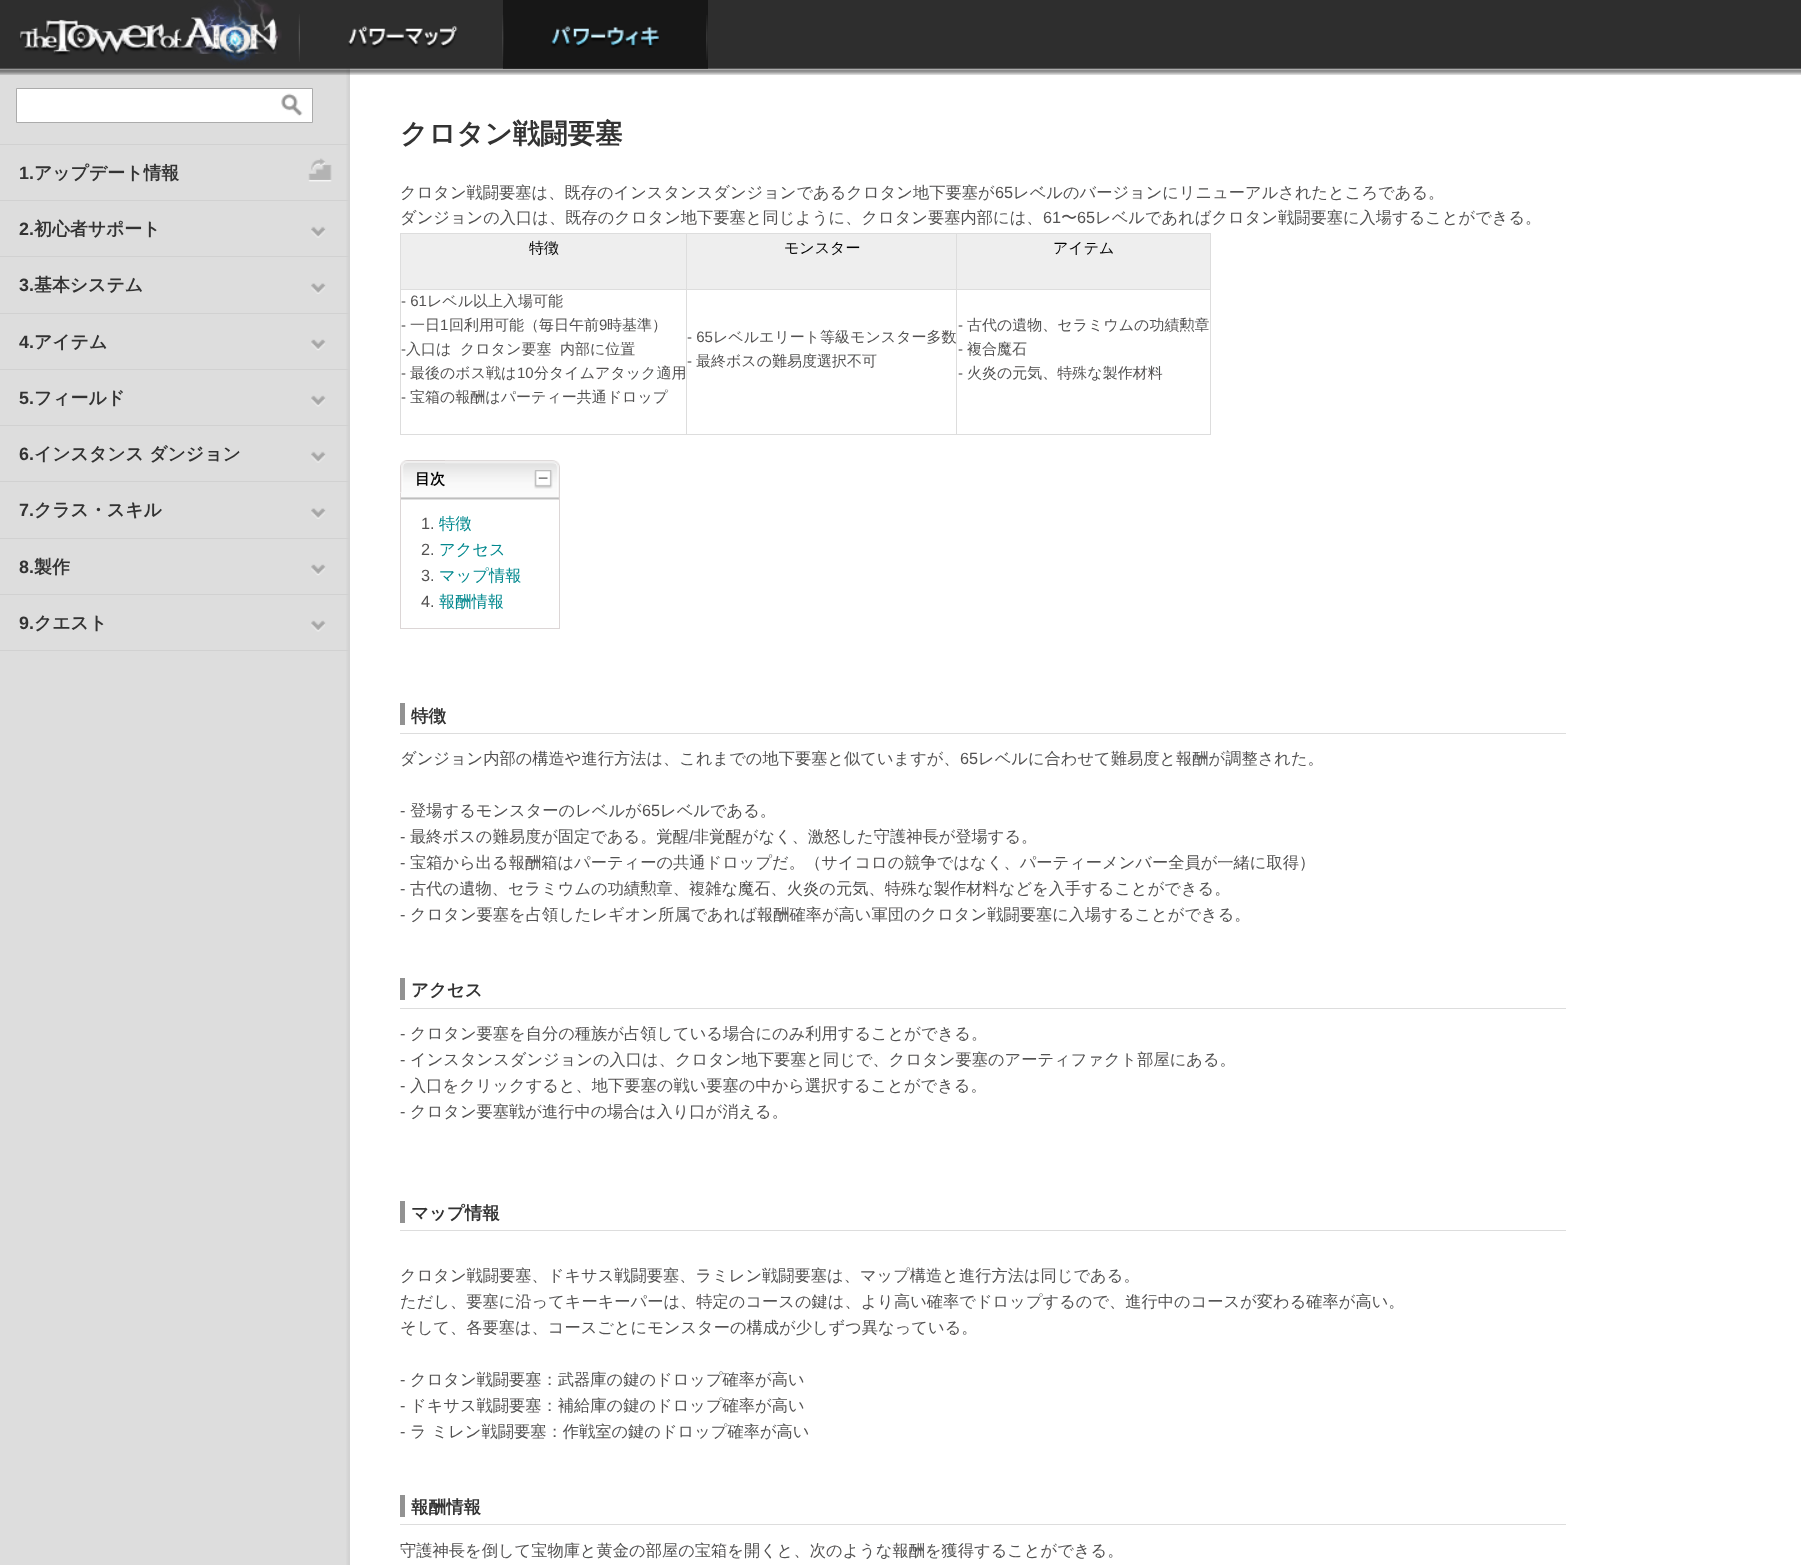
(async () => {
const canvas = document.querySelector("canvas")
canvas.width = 1801
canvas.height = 1565
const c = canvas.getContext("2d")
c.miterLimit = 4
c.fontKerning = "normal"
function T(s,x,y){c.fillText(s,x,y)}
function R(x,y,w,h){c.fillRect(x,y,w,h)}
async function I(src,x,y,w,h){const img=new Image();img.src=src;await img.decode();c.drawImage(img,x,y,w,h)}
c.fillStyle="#fff"
R(0,0,1801,1565)
await I("8.png",0,68,350,1497)
await I("1.png",0,0,1801,75)
await I("2.png",298,14,2,48)
await I("3.png",19,0,263,65)
await I("4.png",502,15,2,46)
await I("5.png",348,26,110,23)
c.fillStyle="#00000080"
R(503,0,205,69)
await I("6.png",706,15,2,45)
await I("7.png",551,26,108,22)
c.fillStyle="#d1d1d1"
R(0,144,350,1)
c.fillStyle="#fff"
c.beginPath()
c.rect(16.5,88.5,296,34)
c.fill()
c.strokeStyle="#ababab"
c.stroke()
await I("9.png",281,93,22,23)
c.fillStyle="#d1d1d1"
R(0,200,350,1)
await I("10.png",308,158,24,24)
c.font="bold 17.9px Liberation Sans"
c.fillStyle="#333"
T("1.",19,179)
c.font="bold 17.9px WenQuanYi Zen Hei"
T("アップデート情報",34,179)
c.fillStyle="#d1d1d1"
R(0,256,350,1)
await I("11.png",311,226,15,12)
c.font="bold 17.9px Liberation Sans"
c.fillStyle="#333"
T("2.",19,235)
c.font="bold 17.9px WenQuanYi Zen Hei"
T("初心者サポート",34,235)
c.fillStyle="#d1d1d1"
R(0,313,350,1)
await I("12.png",311,283,15,11)
c.font="bold 17.9px Liberation Sans"
c.fillStyle="#333"
T("3.",19,291)
c.font="bold 17.9px WenQuanYi Zen Hei"
T("基本システム",34,291)
c.fillStyle="#d1d1d1"
R(0,369,350,1)
await I("13.png",311,339,15,12)
c.font="bold 17.9px Liberation Sans"
c.fillStyle="#333"
T("4.",19,348)
c.font="bold 17.9px WenQuanYi Zen Hei"
T("アイテム",34,348)
c.fillStyle="#d1d1d1"
R(0,425,350,1)
await I("14.png",311,395,15,12)
c.font="bold 17.9px Liberation Sans"
c.fillStyle="#333"
T("5.",19,404)
c.font="bold 17.9px WenQuanYi Zen Hei"
T("フィールド",34,404)
c.fillStyle="#d1d1d1"
R(0,481,350,1)
await I("11.png",311,451,15,12)
c.font="bold 17.9px Liberation Sans"
c.fillStyle="#333"
T("6.",19,460)
c.font="bold 17.9px WenQuanYi Zen Hei"
T("インスタンス ダンジョン",34,460)
c.fillStyle="#d1d1d1"
R(0,538,350,1)
await I("12.png",311,508,15,11)
c.font="bold 17.9px Liberation Sans"
c.fillStyle="#333"
T("7.",19,516)
c.font="bold 17.9px WenQuanYi Zen Hei"
T("クラス・スキル",34,516)
c.fillStyle="#d1d1d1"
R(0,594,350,1)
await I("13.png",311,564,15,12)
c.font="bold 17.9px Liberation Sans"
c.fillStyle="#333"
T("8.",19,573)
c.font="bold 17.9px WenQuanYi Zen Hei"
T("製作",34,573)
c.fillStyle="#d1d1d1"
R(0,650,350,1)
await I("14.png",311,620,15,12)
c.font="bold 17.9px Liberation Sans"
c.fillStyle="#333"
T("9.",19,629)
c.font="bold 17.9px WenQuanYi Zen Hei"
T("クエスト",34,629)
c.font="bold 27.5px WenQuanYi Zen Hei"
T("クロタン戦闘要塞",400,143)
c.font="500 16.25px WenQuanYi Zen Hei"
c.fillStyle="#535252"
T("クロタン戦闘要塞は、既存のインスタンスダンジョンであるクロタン地下要塞が",400,198)
c.font="16.25px Liberation Sans"
T("65",995,198)
c.font="500 16.25px WenQuanYi Zen Hei"
T("レベルのバージョンにリニューアルされたところである。",1013,198)
T("ダンジョンの入口は、既存のクロタン地下要塞と同じように、クロタン要塞内部には、",400,223)
c.font="16.25px Liberation Sans"
T("61",1043,223)
c.font="500 16.25px WenQuanYi Zen Hei"
T("〜",1061,223)
c.font="16.25px Liberation Sans"
T("65",1077,223)
c.font="500 16.25px WenQuanYi Zen Hei"
T("レベルであればクロタン戦闘要塞に入場することができる。",1095,223)
c.fillStyle="#eee"
R(401,234,285,55)
c.fillStyle="#ddd"
R(956,233,255,1)
c.fillStyle="#eee"
R(687,234,523,55)
c.fillStyle="#ddd"
R(956,289,255,1)
R(1210,289,1,146)
R(956,434,255,1)
R(956,289,1,146)
R(686,289,272,1)
R(956,233,1,57)
R(686,233,272,1)
R(686,434,272,1)
R(686,289,1,146)
R(400,289,288,1)
R(686,233,1,57)
R(400,233,288,1)
R(400,434,288,1)
R(400,289,1,146)
R(400,233,1,57)
c.font="500 15px WenQuanYi Zen Hei"
c.fillStyle="#000"
T("特徴",529,253)
T("モンスター",784,253)
c.fillStyle="#ddd"
R(1210,233,1,57)
c.fillStyle="#000"
T("アイテム",1053,253)
c.font="15px Liberation Sans"
c.fillStyle="#535252"
T("- 61",401,306)
c.font="500 15px WenQuanYi Zen Hei"
T("レベル以上入場可能",427,306)
c.font="15px Liberation Sans"
T("-",401,330)
c.font="500 15px WenQuanYi Zen Hei"
T("一日",410,330)
c.font="15px Liberation Sans"
T("1",440,330)
c.font="500 15px WenQuanYi Zen Hei"
T("回利用可能（毎日午前",449,330)
c.font="15px Liberation Sans"
T("9",599,330)
c.font="500 15px WenQuanYi Zen Hei"
T("時基準）",607,330)
c.font="15px Liberation Sans"
T("-",401,354)
c.font="500 15px WenQuanYi Zen Hei"
T("入口は",406,354)
T("クロタン要塞",460,354)
T("内部に位置",560,354)
c.font="15px Liberation Sans"
T("-",401,378)
c.font="500 15px WenQuanYi Zen Hei"
T("最後のボス戦は",410,378)
c.font="15px Liberation Sans"
T("10",517,378)
c.font="500 15px WenQuanYi Zen Hei"
T("分タイムアタック適用",534,378)
c.font="15px Liberation Sans"
T("-",401,402)
c.font="500 15px WenQuanYi Zen Hei"
T("宝箱の報酬はパーティー共通ドロップ",410,402)
c.font="15px Liberation Sans"
T("- 65",687,342)
c.font="500 15px WenQuanYi Zen Hei"
T("レベルエリート等級モンスター多数",713,342)
c.font="15px Liberation Sans"
T("-",687,366)
c.font="500 15px WenQuanYi Zen Hei"
T("最終ボスの難易度選択不可",696,366)
c.font="15px Liberation Sans"
T("-",958,330)
c.font="500 15px WenQuanYi Zen Hei"
T("古代の遺物、セラミウムの功績勲章",967,330)
c.font="15px Liberation Sans"
T("-",958,354)
c.font="500 15px WenQuanYi Zen Hei"
T("複合魔石",967,354)
c.font="15px Liberation Sans"
T("-",958,378)
c.font="500 15px WenQuanYi Zen Hei"
T("火炎の元気、特殊な製作材料",967,378)
await I("15.png",400,460,160,40)
await I("16.png",400,460,45,33)
c.font="bold 15px WenQuanYi Zen Hei"
c.fillStyle="#000"
T("目次",415,484)
await I("17.png",534,470,19,19)
c.fillStyle="#dcd6d6"
R(559,493,1,136)
R(400,628,160,1)
R(400,493,1,136)
c.font="16.25px Liberation Sans"
c.fillStyle="#535252"
T("1.",421,529)
c.font="500 16.25px WenQuanYi Zen Hei"
c.fillStyle="#01888e"
T("特徴",439,529)
c.font="16.25px Liberation Sans"
c.fillStyle="#535252"
T("2.",421,555)
c.font="500 16.25px WenQuanYi Zen Hei"
c.fillStyle="#01888e"
T("アクセス",439,555)
c.font="16.25px Liberation Sans"
c.fillStyle="#535252"
T("3.",421,581)
c.font="500 16.25px WenQuanYi Zen Hei"
c.fillStyle="#01888e"
T("マップ情報",439,581)
c.font="16.25px Liberation Sans"
c.fillStyle="#535252"
T("4.",421,607)
c.font="500 16.25px WenQuanYi Zen Hei"
c.fillStyle="#01888e"
T("報酬情報",439,607)
c.fillStyle="#ddd"
R(400,733,1166,1)
c.fillStyle="#929292"
R(400,703,5,22)
c.font="bold 17.5px WenQuanYi Zen Hei"
c.fillStyle="#333"
T("特徴",411,722)
c.font="500 16.25px WenQuanYi Zen Hei"
c.fillStyle="#535252"
T("ダンジョン内部の構造や進行方法は、これまでの地下要塞と似ていますが、",400,764)
c.font="16.25px Liberation Sans"
T("65",960,764)
c.font="500 16.25px WenQuanYi Zen Hei"
T("レベルに合わせて難易度と報酬が調整された。",978,764)
c.font="16.25px Liberation Sans"
T("-",400,816)
c.font="500 16.25px WenQuanYi Zen Hei"
T("登場するモンスターのレベルが",410,816)
c.font="16.25px Liberation Sans"
T("65",642,816)
c.font="500 16.25px WenQuanYi Zen Hei"
T("レベルである。",660,816)
c.font="16.25px Liberation Sans"
T("-",400,842)
c.font="500 16.25px WenQuanYi Zen Hei"
T("最終ボスの難易度が固定である。覚醒",410,842)
c.font="16.25px Liberation Sans"
T("/",689,842)
c.font="500 16.25px WenQuanYi Zen Hei"
T("非覚醒がなく、激怒した守護神長が登場する。",693,842)
c.font="16.25px Liberation Sans"
T("-",400,868)
c.font="500 16.25px WenQuanYi Zen Hei"
T("宝箱から出る報酬箱はパーティーの共通ドロップだ。（サイコロの競争ではなく、パーティーメンバー全員が一緒に取得）",410,868)
c.font="16.25px Liberation Sans"
T("-",400,894)
c.font="500 16.25px WenQuanYi Zen Hei"
T("古代の遺物、セラミウムの功績勲章、複雑な魔石、火炎の元気、特殊な製作材料などを入手することができる。",410,894)
c.font="16.25px Liberation Sans"
T("-",400,920)
c.font="500 16.25px WenQuanYi Zen Hei"
T("クロタン要塞を占領したレギオン所属であれば報酬確率が高い軍団のクロタン戦闘要塞に入場することができる。",410,920)
c.fillStyle="#ddd"
R(400,1008,1166,1)
c.fillStyle="#929292"
R(400,978,5,22)
c.font="bold 17.5px WenQuanYi Zen Hei"
c.fillStyle="#333"
T("アクセス",411,996)
c.font="16.25px Liberation Sans"
c.fillStyle="#535252"
T("-",400,1039)
c.font="500 16.25px WenQuanYi Zen Hei"
T("クロタン要塞を自分の種族が占領している場合にのみ利用することができる。",410,1039)
c.font="16.25px Liberation Sans"
T("-",400,1065)
c.font="500 16.25px WenQuanYi Zen Hei"
T("インスタンスダンジョンの入口は、クロタン地下要塞と同じで、クロタン要塞のアーティファクト部屋にある。",410,1065)
c.font="16.25px Liberation Sans"
T("-",400,1091)
c.font="500 16.25px WenQuanYi Zen Hei"
T("入口をクリックすると、地下要塞の戦い要塞の中から選択することができる。",410,1091)
c.font="16.25px Liberation Sans"
T("-",400,1117)
c.font="500 16.25px WenQuanYi Zen Hei"
T("クロタン要塞戦が進行中の場合は入り口が消える。",410,1117)
c.fillStyle="#ddd"
R(400,1230,1166,1)
c.fillStyle="#929292"
R(400,1201,5,22)
c.font="bold 17.5px WenQuanYi Zen Hei"
c.fillStyle="#333"
T("マップ情報",411,1219)
c.font="500 16.25px WenQuanYi Zen Hei"
c.fillStyle="#535252"
T("クロタン戦闘要塞、ドキサス戦闘要塞、ラミレン戦闘要塞は、マップ構造と進行方法は同じである。",400,1281)
T("ただし、要塞に沿ってキーキーパーは、特定のコースの鍵は、より高い確率でドロップするので、進行中のコースが変わる確率が高い。",400,1307)
T("そして、各要塞は、コースごとにモンスターの構成が少しずつ異なっている。",400,1333)
c.font="16.25px Liberation Sans"
T("-",400,1385)
c.font="500 16.25px WenQuanYi Zen Hei"
T("クロタン戦闘要塞：武器庫の鍵のドロップ確率が高い",410,1385)
c.font="16.25px Liberation Sans"
T("-",400,1411)
c.font="500 16.25px WenQuanYi Zen Hei"
T("ドキサス戦闘要塞：補給庫の鍵のドロップ確率が高い",410,1411)
c.font="16.25px Liberation Sans"
T("-",400,1437)
c.font="500 16.25px WenQuanYi Zen Hei"
T("ラ ミレン戦闘要塞：作戦室の鍵のドロップ確率が高い",410,1437)
c.fillStyle="#ddd"
R(400,1524,1166,1)
c.fillStyle="#929292"
R(400,1495,5,22)
c.font="bold 17.5px WenQuanYi Zen Hei"
c.fillStyle="#333"
T("報酬情報",411,1513)
c.font="500 16.25px WenQuanYi Zen Hei"
c.fillStyle="#535252"
T("守護神長を倒して宝物庫と黄金の部屋の宝箱を開くと、次のような報酬を獲得することができる。",400,1556)
})()
